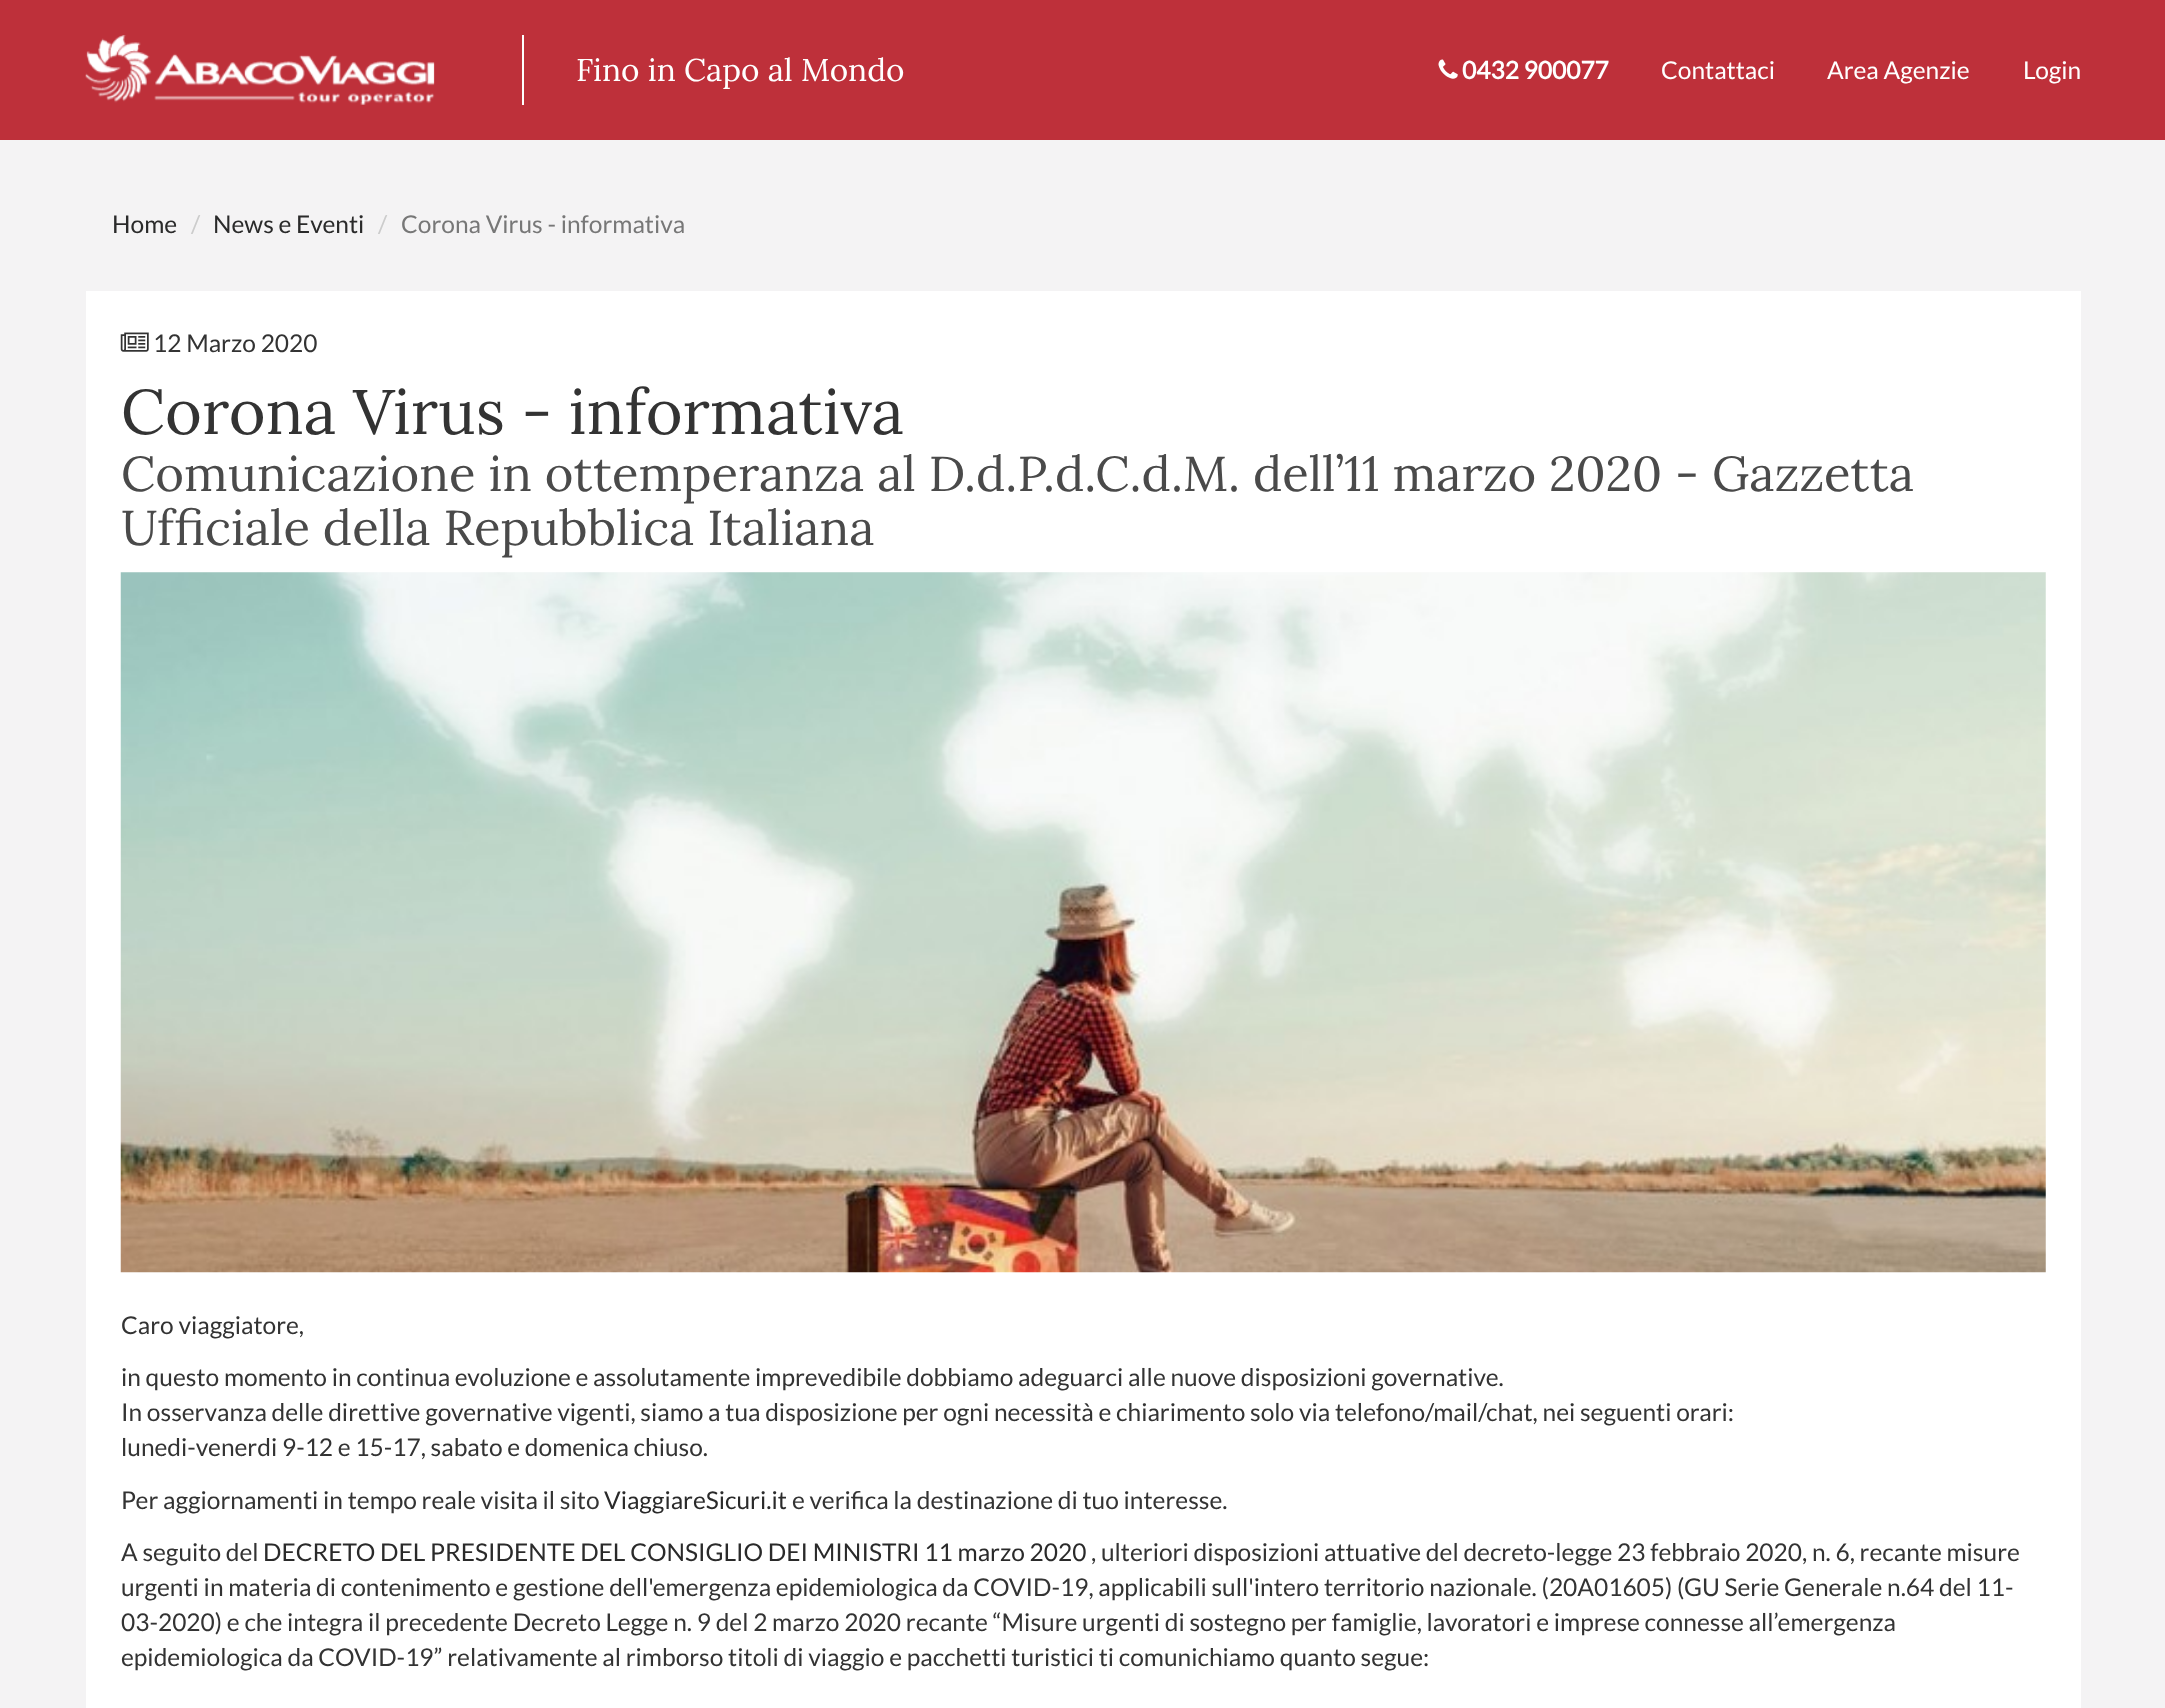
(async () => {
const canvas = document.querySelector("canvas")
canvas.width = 2165
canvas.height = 1708
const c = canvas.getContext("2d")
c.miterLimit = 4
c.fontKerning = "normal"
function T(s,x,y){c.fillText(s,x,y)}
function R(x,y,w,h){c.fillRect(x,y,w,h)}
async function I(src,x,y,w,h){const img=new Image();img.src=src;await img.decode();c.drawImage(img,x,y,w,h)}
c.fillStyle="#f4f3f4"
R(0,0,2165,1708)
c.fillStyle="#be303a"
R(0,0,2165,140)
c.fillStyle="#fff"
R(522,35,2,70)
await I("1.png",85,35,350,70)
c.font="31.5px Lora"
T("Fino in Capo al Mondo",576,81)
await I("2.png",1438,59,20,20)
c.font="bold 24.5px Lato"
T("0432 900077",1462,79)
c.font="24.5px Lato"
T("Contattaci",1661,79)
T("Area Agenzie",1827,79)
T("Login",2023,79)
c.fillStyle="#2a2a2a"
T("Home",112,233)
c.fillStyle="#ccc"
T("/",191,233)
c.fillStyle="#2a2a2a"
T("News e Eventi",213,233)
c.fillStyle="#ccc"
T("/",378,233)
c.fillStyle="#777"
T("Corona Virus - informativa",401,233)
c.fillStyle="#fff"
R(86,291,1995,1417)
await I("3.png",120,332,29,20)
c.fillStyle="#333"
T("12 Marzo 2020",153,352)
c.font="63px Lora"
T("Corona Virus - informativa",121,434)
c.font="49px Lora"
c.fillStyle="#4a4a4a"
T("Comunicazione in ottemperanza al D.d.P.d.C.d.M. dell’11 marzo 2020 - Gazzetta",121,491)
T("Ufficiale della Repubblica Italiana",121,545)
await I("4.png",120,572,1926,701)
c.font="24.5px Lato"
c.fillStyle="#333"
T("Caro viaggiatore,",121,1334)
T("in questo momento in continua evoluzione e assolutamente imprevedibile dobbiamo adeguarci alle nuove disposizioni governative.",121,1386)
T("In osservanza delle direttive governative vigenti, siamo a tua disposizione per ogni necessità e chiarimento solo via telefono/mail/chat, nei seguenti orari:",121,1421)
T("lunedi-venerdi 9-12 e 15-17, sabato e domenica chiuso.",121,1456)
T("Per aggiornamenti in tempo reale visita il sito",121,1509)
c.fillStyle="#2a2a2a"
T("ViaggiareSicuri.it",604,1509)
c.fillStyle="#333"
T("e verifica la destinazione di tuo interesse.",792,1509)
T("A seguito del",121,1561)
c.fillStyle="#2a2a2a"
T("DECRETO DEL PRESIDENTE DEL CONSIGLIO DEI MINISTRI 11 marzo 2020",263,1561)
c.fillStyle="#333"
T(", ulteriori disposizioni attuative del decreto-legge 23 febbraio 2020, n. 6, recante misure",1091,1561)
T("urgenti in materia di contenimento e gestione dell'emergenza epidemiologica da COVID-19, applicabili sull'intero territorio nazionale. (20A01605) (GU Serie Generale n.64 del 11-",121,1596)
T("03-2020) e che integra il precedente Decreto Legge n. 9 del 2 marzo 2020 recante “Misure urgenti di sostegno per famiglie, lavoratori e imprese connesse all’emergenza",121,1631)
T("epidemiologica da COVID-19” relativamente al rimborso titoli di viaggio e pacchetti turistici ti comunichiamo quanto segue:",121,1666)
})()
